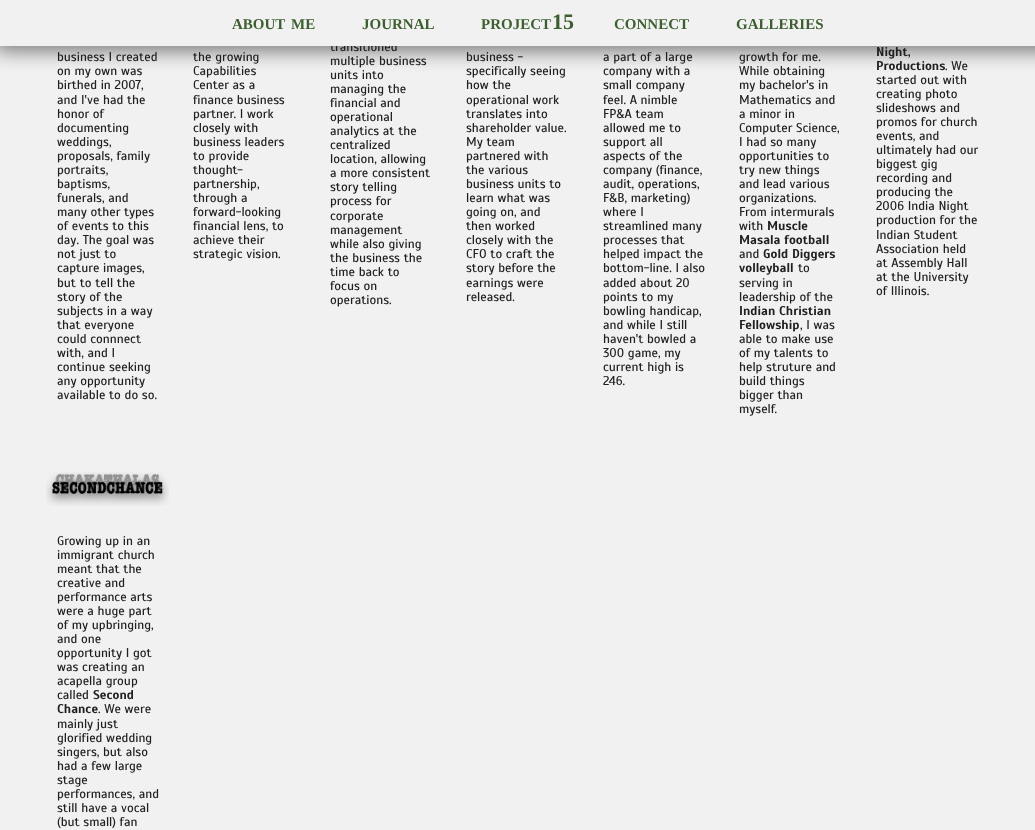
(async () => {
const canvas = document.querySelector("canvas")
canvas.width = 1035
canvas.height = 830
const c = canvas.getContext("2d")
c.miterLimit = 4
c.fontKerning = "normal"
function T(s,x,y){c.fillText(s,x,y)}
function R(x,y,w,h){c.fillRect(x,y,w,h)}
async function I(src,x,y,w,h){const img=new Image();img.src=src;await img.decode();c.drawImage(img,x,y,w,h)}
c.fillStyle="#f1f1f1"
R(0,0,1035,830)
c.fillStyle="#00000080"
c.filter="blur(10px)"
c.beginPath()
c.rect(-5,-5,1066,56)
c.fill()
c.filter="none"
c.font="12.75px Scada"
c.fillStyle="#202020"
T("transitioned",330,51)
c.fillStyle="#f1f1f1"
R(0,0,1035,46)
c.font="bold 15px Liberation Serif"
c.fillStyle="#3d5e2f"
T("ABOUT",232,29)
T("ME",291,29)
T("JOURNAL",362,29)
T("PROJECT",481,29)
c.font="bold 22px Liberation Serif"
T("15",552,29)
c.font="bold 15px Liberation Serif"
T("CONNECT",614,29)
T("GALLERIES",736,29)
c.font="12.75px Scada"
c.fillStyle="#202020"
T("business I created",57,61)
T("on my own was",57,75)
T("birthed in 2007,",57,89)
T("and I've had the",57,104)
T("honor of",57,118)
T("documenting",57,132)
T("weddings,",57,146)
T("proposals, family",57,160)
T("portraits,",57,174)
T("baptisms,",57,188)
T("funerals, and",57,202)
T("many other types",57,216)
T("of events to this",57,230)
T("day. The goal was",57,244)
T("not just to",57,258)
T("capture images,",57,272)
T("but to tell the",57,287)
T("story of the",57,301)
T("subjects in a way",57,315)
T("that everyone",57,329)
T("could connnect",57,343)
T("with, and I",57,357)
T("continue seeking",57,371)
T("any opportunity",57,385)
T("available to do so.",57,399)
T("the growing",193,61)
T("Capabilities",193,75)
T("Center as a",193,89)
T("finance business",193,104)
T("partner. I work",193,118)
T("closely with",193,132)
T("business leaders",193,146)
T("to provide",193,160)
T("thought-",193,174)
T("partnership,",193,188)
T("through a",193,202)
T("forward-looking",193,216)
T("financial lens, to",193,230)
T("achieve their",193,244)
T("strategic vision.",193,258)
T("multiple business",330,65)
T("units into",330,79)
T("managing the",330,93)
T("financial and",330,107)
T("operational",330,121)
T("analytics at the",330,135)
T("centralized",330,149)
T("location, allowing",330,163)
T("a more consistent",330,177)
T("story telling",330,191)
T("process for",330,205)
T("corporate",330,220)
T("management",330,234)
T("while also giving",330,248)
T("the business the",330,262)
T("time back to",330,276)
T("focus on",330,290)
T("operations.",330,304)
T("business -",466,61)
T("specifically seeing",466,75)
T("how the",466,89)
T("operational work",466,104)
T("translates into",466,118)
T("shareholder value.",466,132)
T("My team",466,146)
T("partnered with",466,160)
T("the various",466,174)
T("business units to",466,188)
T("learn what was",466,202)
T("going on, and",466,216)
T("then worked",466,230)
T("closely with the",466,244)
T("CFO to craft the",466,258)
T("story before the",466,272)
T("earnings were",466,287)
T("released.",466,301)
T("a part of a large",603,61)
T("company with a",603,75)
T("small company",603,89)
T("feel. A nimble",603,104)
T("FP&A team",603,118)
T("allowed me to",603,132)
T("support all",603,146)
T("aspects of the",603,160)
T("company (finance,",603,174)
T("audit, operations,",603,188)
T("F&B, marketing)",603,202)
T("where I",603,216)
T("streamlined many",603,230)
T("processes that",603,244)
T("helped impact the",603,258)
T("bottom-line. I also",603,272)
T("added about 20",603,287)
T("points to my",603,301)
T("bowling handicap,",603,315)
T("and while I still",603,329)
T("haven't bowled a",603,343)
T("300 game, my",603,357)
T("current high is",603,371)
T("246.",603,385)
T("growth for me.",739,61)
T("While obtaining",739,75)
T("my bachelor's in",739,89)
T("Mathematics and",739,104)
T("a minor in",739,118)
T("Computer Science,",739,132)
T("I had so many",739,146)
T("opportunities to",739,160)
T("try new things",739,174)
T("and lead various",739,188)
T("organizations.",739,202)
T("From intermurals",739,216)
T("with",739,230)
c.font="bold 12.75px Scada"
T("Muscle",767,230)
T("Masala football",739,244)
c.font="12.75px Scada"
T("and",739,258)
c.font="bold 12.75px Scada"
T("Gold Diggers",763,258)
T("volleyball",739,272)
c.font="12.75px Scada"
T("to",798,272)
T("serving in",739,287)
T("leadership of the",739,301)
c.font="bold 12.75px Scada"
T("Indian Christian",739,315)
T("Fellowship",739,329)
c.font="12.75px Scada"
T(", I was",800,329)
T("able to make use",739,343)
T("of my talents to",739,357)
T("help struture and",739,371)
T("build things",739,385)
T("bigger than",739,399)
T("myself.",739,413)
c.font="bold 12.75px Scada"
T("Night,",876,56)
T("Productions",876,70)
c.font="12.75px Scada"
T(". We",945,70)
T("started out with",876,84)
T("creating photo",876,98)
T("slideshows and",876,112)
T("promos for church",876,126)
T("events, and",876,140)
T("ultimately had our",876,154)
T("biggest gig",876,168)
T("recording and",876,182)
T("producing the",876,196)
T("2006 India Night",876,210)
T("production for the",876,224)
T("Indian Student",876,239)
T("Association held",876,253)
T("at Assembly Hall",876,267)
T("at the University",876,281)
T("of Illinois.",876,295)
await I("1.png",46,472,123,34)
T("Growing up in an",57,545)
T("immigrant church",57,559)
T("meant that the",57,573)
T("creative and",57,587)
T("performance arts",57,601)
T("were a huge part",57,615)
T("of my upbringing,",57,629)
T("and one",57,643)
T("opportunity I got",57,657)
T("was creating an",57,671)
T("acapella group",57,685)
T("called",57,699)
c.font="bold 12.75px Scada"
T("Second",93,699)
T("Chance",57,713)
c.font="12.75px Scada"
T(". We were",98,713)
T("mainly just",57,728)
T("glorified wedding",57,742)
T("singers, but also",57,756)
T("had a few large",57,770)
T("stage",57,784)
T("performances, and",57,798)
T("still have a vocal",57,812)
T("(but small) fan",57,826)
})()
